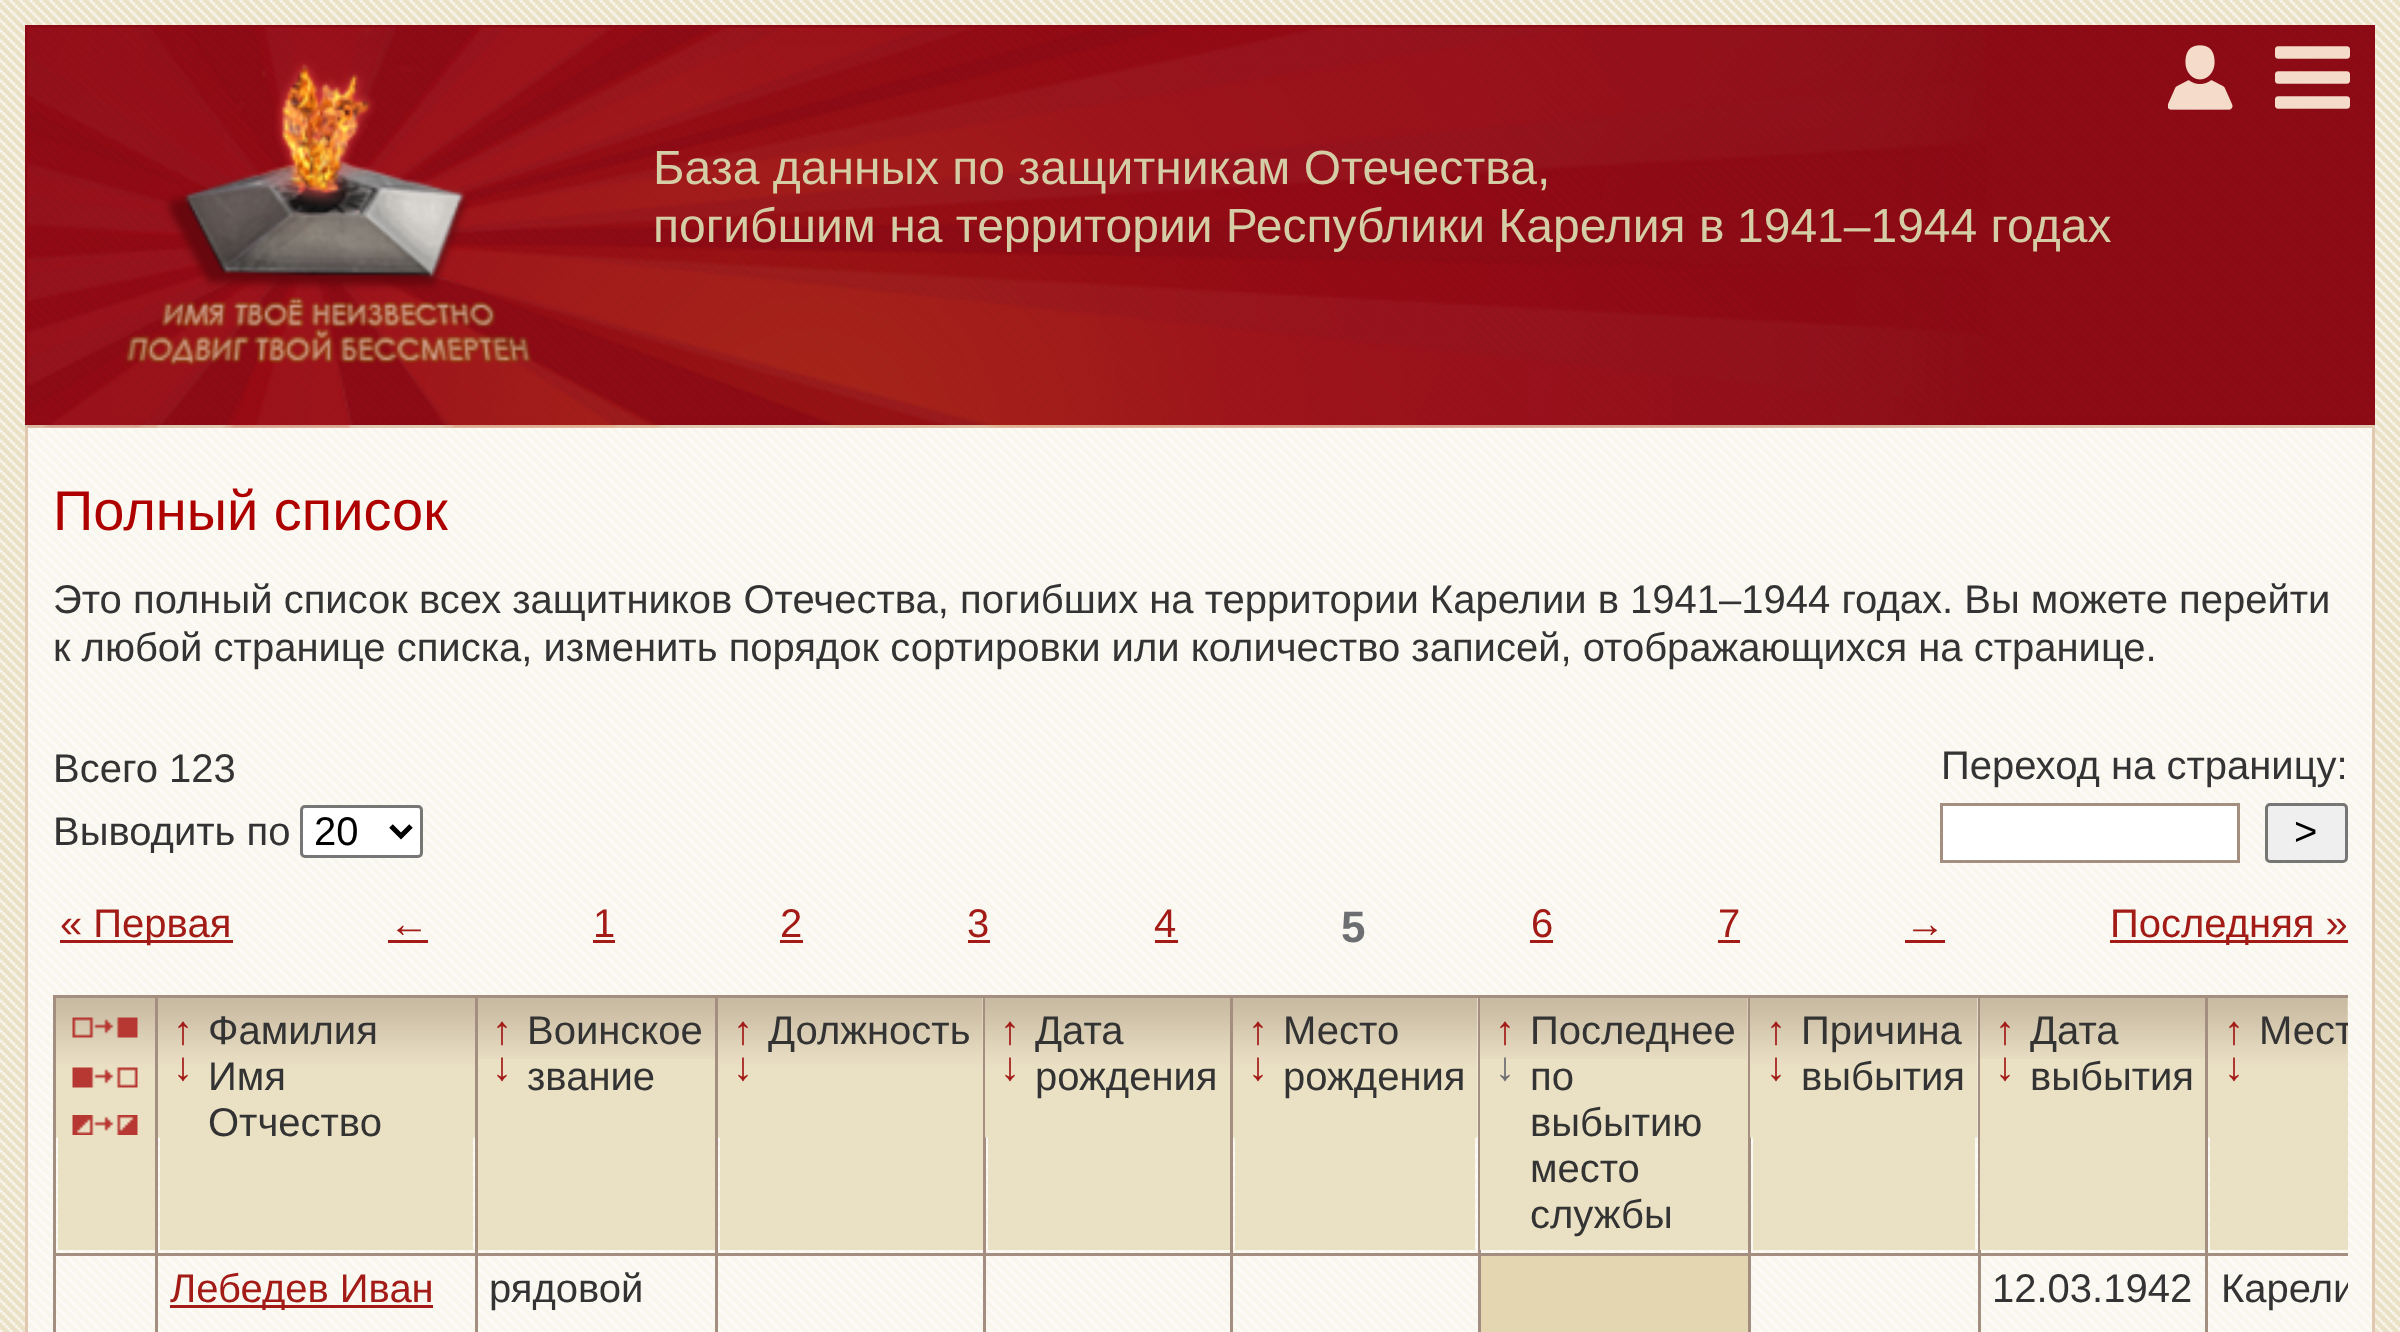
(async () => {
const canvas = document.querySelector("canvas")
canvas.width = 2400
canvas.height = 1332
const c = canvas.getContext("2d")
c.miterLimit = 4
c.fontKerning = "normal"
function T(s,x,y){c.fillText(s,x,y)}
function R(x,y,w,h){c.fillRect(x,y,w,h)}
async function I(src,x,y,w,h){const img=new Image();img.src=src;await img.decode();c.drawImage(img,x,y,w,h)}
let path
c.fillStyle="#fff"
R(0,0,2400,1332)
await I("1.png",0,0,2400,1332)
await I("4.png",28,28,2344,394)
c.strokeStyle="#8a0b15"
c.lineWidth=3
c.strokeRect(26.5,26.5,2347,397)
await I("2.png",2168,45,65,65)
await I("3.png",2275,46,75,63)
await I("6.png",28,428,2344,904)
c.strokeStyle="#e0c8b1"
c.strokeRect(26.5,426.5,2347,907)
await I("5.png",27,27,1959,401)
c.font="48px Liberation Sans"
c.fillStyle="#d5cda6"
T("База данных по защитникам Отечества,",653,184)
T("погибшим на территории Республики Карелия в",653,242)
T("1941–1944 годах",1737,242)
c.font="56px Liberation Sans"
c.fillStyle="#af0000"
T("Полный список",53,530)
c.font="40px Liberation Sans"
c.fillStyle="#333"
T("Это полный список всех защитников Отечества, погибших на территории Карелии в 1941–1944 годах. Вы можете перейти",53,613)
T("к любой странице списка, изменить порядок сортировки или количество записей, отображающихся на странице.",53,661)
T("Всего 123",53,782)
T("Выводить по",53,845)
c.fillStyle="#fff"
c.beginPath()
c.roundRect(301.5,806.5,120,50,3.5)
c.fill()
c.strokeStyle="#767676"
c.stroke()
path = new Path2D("M391 826l10 10l10-10")
c.strokeStyle="#000"
c.lineWidth=5
c.stroke(path)
c.fillStyle="#000"
T("20",314,845)
c.fillStyle="#333"
T("Переход на страницу:",1941,779)
c.fillStyle="#fff"
c.beginPath()
c.rect(1941.5,804.5,297,57)
c.fill()
c.strokeStyle="#a38e80"
c.lineWidth=3
c.stroke()
c.fillStyle="#efefef"
c.beginPath()
c.roundRect(2266.5,804.5,80,57,3.5)
c.fill()
c.strokeStyle="#767676"
c.stroke()
c.fillStyle="#000"
T(">",2294,845)
c.fillStyle="#a21b17"
R(60,940,173,3)
T("« Первая",60,937)
T("←",389,937)
R(388,940,40,3)
T("1",593,937)
R(593,940,22,3)
T("2",780,937)
R(780,940,23,3)
T("3",967,937)
R(968,940,22,3)
T("4",1154,937)
R(1155,940,23,3)
c.font="bold 44px Liberation Sans"
c.fillStyle="#6d6e71"
T("5",1341,942)
c.font="40px Liberation Sans"
c.fillStyle="#a21b17"
T("6",1531,937)
R(1530,940,23,3)
T("7",1718,937)
R(1718,940,22,3)
T("→",1905,937)
R(1905,940,40,3)
R(2110,940,238,3)
T("Последняя »",2110,937)
c.fillStyle="#eae0c4"
R(58,1137,97,113)
await I("7.png",56,998,99,140)
c.fillStyle="#a38e80"
R(2205,995,143,3)
R(2205,1253,143,3)
R(2205,1253,3,79)
R(1978,1253,230,3)
R(2205,995,3,260)
R(1978,995,230,3)
R(1978,1253,3,79)
R(1748,1253,232,3)
R(1978,995,3,260)
R(1748,995,232,3)
R(1748,1253,3,79)
R(1478,1253,272,3)
R(1748,995,3,260)
R(1478,995,272,3)
R(1478,1253,3,79)
R(1230,1253,250,3)
R(1478,995,3,260)
R(1230,995,250,3)
R(1230,1253,3,79)
R(983,1253,250,3)
R(1230,995,3,260)
R(983,995,250,3)
R(983,1253,3,79)
R(715,1253,270,3)
R(983,995,3,260)
R(715,995,270,3)
R(715,1253,3,79)
R(475,1253,243,3)
R(715,995,3,260)
R(475,995,243,3)
R(475,1253,3,79)
R(155,1253,323,3)
R(475,995,3,260)
R(155,995,323,3)
R(155,1253,3,79)
R(53,1253,105,3)
R(155,995,3,260)
R(53,995,105,3)
R(53,1253,3,79)
R(53,995,3,260)
await I("8.png",72,1017,66,21)
await I("9.png",72,1067,66,21)
await I("10.png",72,1115,66,20)
c.fillStyle="#eae0c4"
R(160,1137,313,113)
await I("11.png",158,998,317,140)
c.fillStyle="#a21b17"
T("↑",173,1044)
c.fillStyle="#333"
T("Фамилия",208,1044)
c.fillStyle="#a21b17"
T("↓",173,1080)
c.fillStyle="#333"
T("Имя",208,1090)
T("Отчество",208,1136)
c.fillStyle="#eae0c4"
R(478,1059,237,191)
await I("12.png",478,998,237,61)
c.fillStyle="#a21b17"
T("↑",492,1044)
c.fillStyle="#333"
T("Воинское",527,1044)
c.fillStyle="#a21b17"
T("↓",492,1080)
c.fillStyle="#333"
T("звание",527,1090)
c.fillStyle="#eae0c4"
R(720,998,263,252)
await I("13.png",718,998,265,140)
c.fillStyle="#a21b17"
T("↑",733,1044)
c.fillStyle="#333"
T("Должность",768,1044)
c.fillStyle="#a21b17"
T("↓",733,1080)
c.fillStyle="#eae0c4"
R(988,1137,242,113)
await I("14.png",985,998,245,140)
c.fillStyle="#a21b17"
T("↑",1000,1044)
c.fillStyle="#333"
T("Дата",1035,1044)
c.fillStyle="#a21b17"
T("↓",1000,1080)
c.fillStyle="#333"
T("рождения",1035,1090)
c.fillStyle="#eae0c4"
R(1235,1137,240,113)
await I("15.png",1233,998,245,140)
c.fillStyle="#a21b17"
T("↑",1248,1044)
c.fillStyle="#333"
T("Место",1283,1044)
c.fillStyle="#a21b17"
T("↓",1248,1080)
c.fillStyle="#333"
T("рождения",1283,1090)
c.fillStyle="#eae0c4"
R(1480,998,268,252)
await I("16.png",1480,998,268,61)
c.fillStyle="#a21b17"
T("↑",1495,1044)
c.fillStyle="#333"
T("Последнее",1530,1044)
c.fillStyle="#6d6e71"
T("↓",1495,1080)
c.fillStyle="#333"
T("по",1530,1090)
T("выбытию",1530,1136)
T("место",1530,1182)
T("службы",1530,1228)
c.fillStyle="#eae0c4"
R(1753,1137,222,113)
await I("17.png",1750,998,228,140)
c.fillStyle="#a21b17"
T("↑",1766,1044)
c.fillStyle="#333"
T("Причина",1801,1044)
c.fillStyle="#a21b17"
T("↓",1766,1080)
c.fillStyle="#333"
T("выбытия",1801,1090)
c.fillStyle="#eae0c4"
R(1980,1059,225,191)
await I("18.png",1980,998,225,61)
c.fillStyle="#a21b17"
T("↑",1995,1044)
c.fillStyle="#333"
T("Дата",2030,1044)
c.fillStyle="#a21b17"
T("↓",1995,1080)
c.fillStyle="#333"
T("выбытия",2030,1090)
c.fillStyle="#eae0c4"
R(2210,998,138,252)
await I("19.png",2208,998,140,140)
c.fillStyle="#a21b17"
T("↑",2224,1044)
c.save()
c.beginPath()
c.rect(53,970,2295,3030)
c.clip()
c.fillStyle="#333"
T("Мест",2259,1044)
c.restore()
T("↓",2224,1080)
R(170,1305,263,3)
T("Лебедев Иван",170,1302)
c.fillStyle="#333"
T("рядовой",489,1302)
c.fillStyle="#e3d6b1"
R(1481,1256,267,76)
c.fillStyle="#333"
T("12.03.1942",1992,1302)
c.save()
c.beginPath()
c.rect(53,970,2295,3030)
c.clip()
T("Карели",2221,1302)
c.restore()
})()
